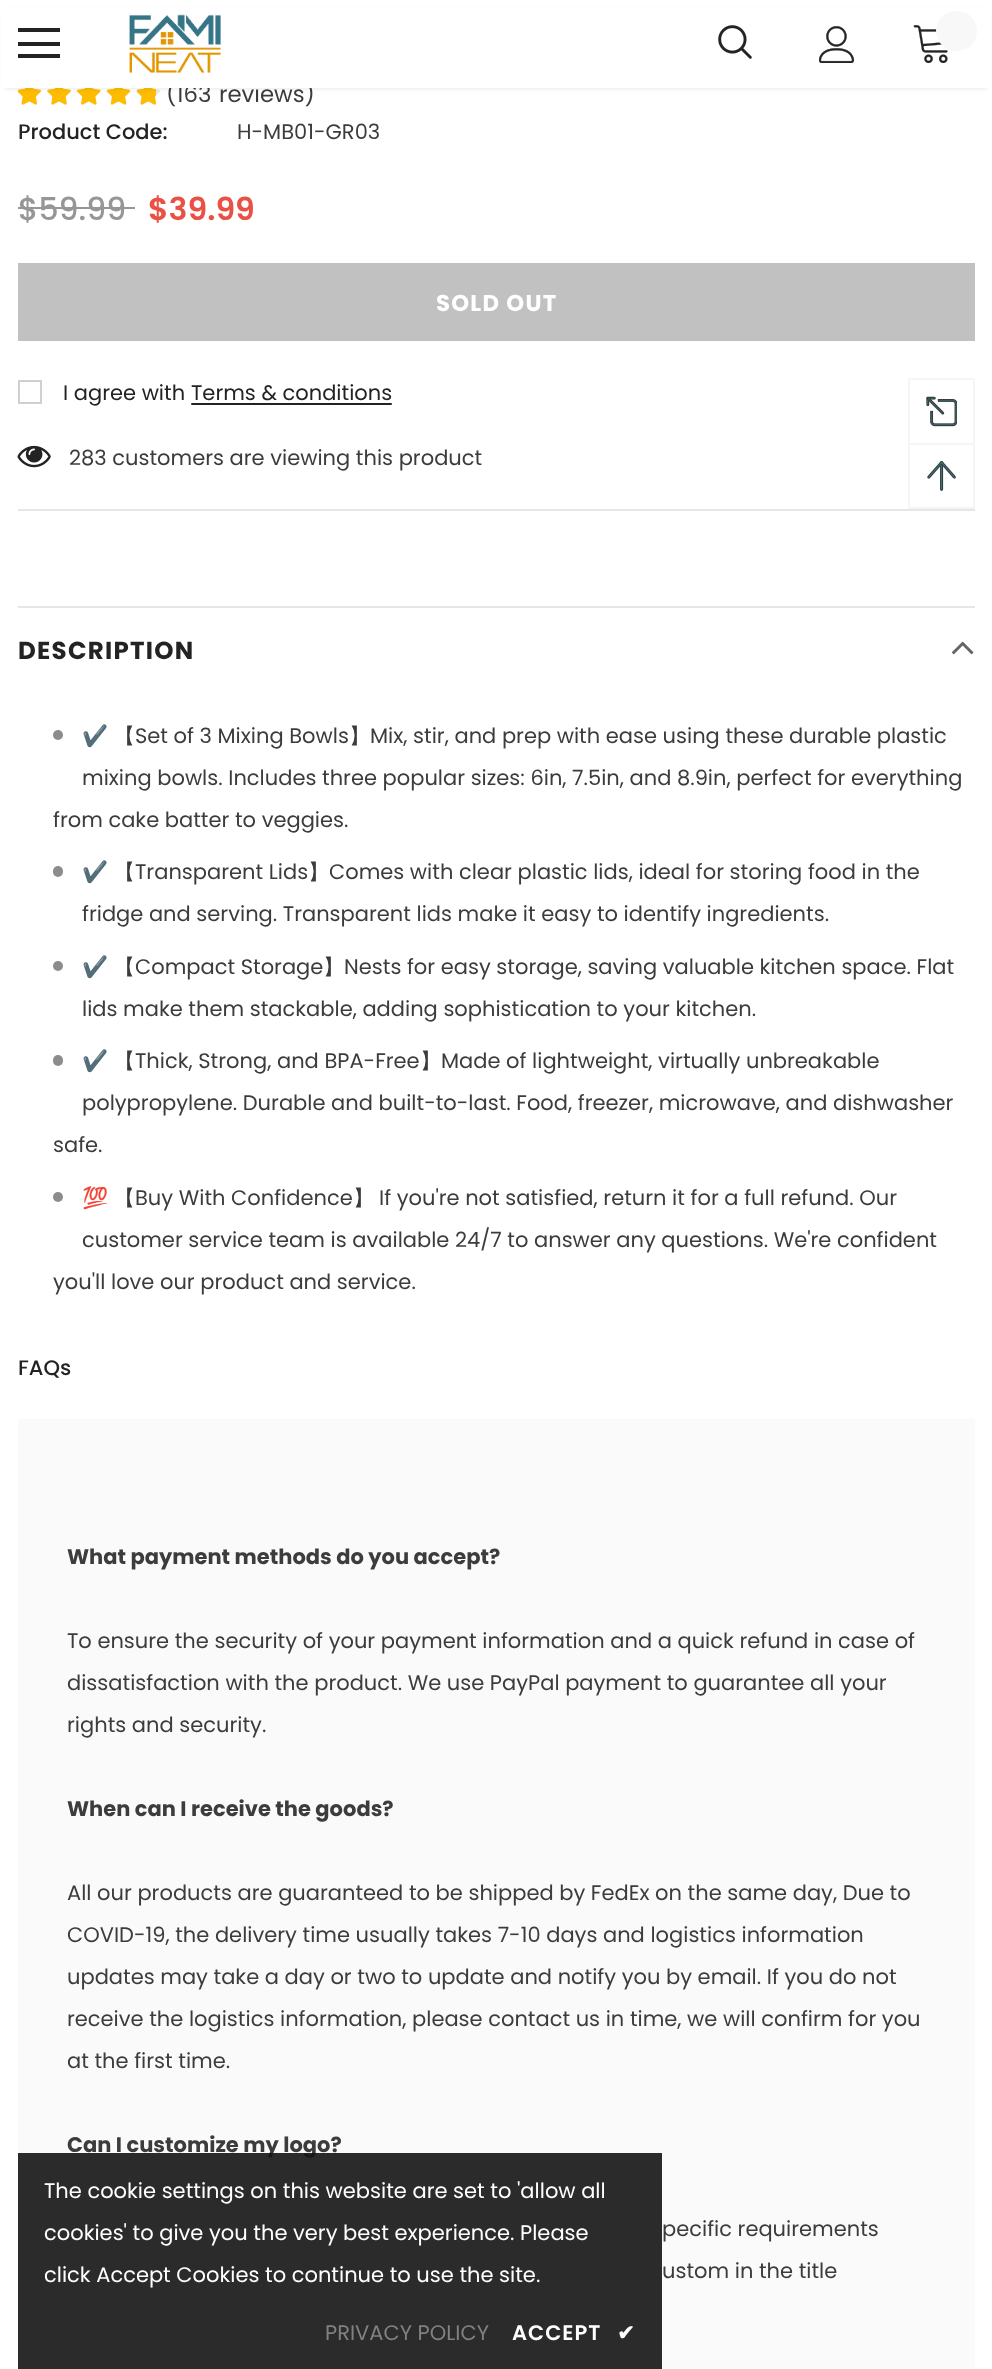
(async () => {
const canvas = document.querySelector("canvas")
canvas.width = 992
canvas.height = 2369
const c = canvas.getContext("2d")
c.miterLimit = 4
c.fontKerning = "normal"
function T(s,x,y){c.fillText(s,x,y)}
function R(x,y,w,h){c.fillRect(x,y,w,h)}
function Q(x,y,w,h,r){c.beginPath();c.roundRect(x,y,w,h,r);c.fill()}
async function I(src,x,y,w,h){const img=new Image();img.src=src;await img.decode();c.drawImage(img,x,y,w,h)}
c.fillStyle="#fff"
R(0,0,992,2369)
await I("5.png",18,88,23,17)
await I("6.png",47,88,24,17)
await I("7.png",77,88,24,17)
await I("8.png",106,88,25,17)
await I("9.png",136,88,24,17)
await I("10.png",137,88,19,17)
c.fillStyle="#0000001f"
c.filter="blur(2.5px)"
c.beginPath()
c.rect(5,11,982,77)
c.fill()
c.filter="none"
c.font="22.75px Poppins"
c.fillStyle="#3c3c3c"
T("(163",166,102)
T("reviews)",219,102)
c.fillStyle="#fff"
R(2,8,988,80)
c.fillStyle="#232323"
R(18,28,42,4)
R(18,42,42,4)
R(18,54,42,4)
await I("1.png",129,14,92,59)
await I("2.png",718,25,34,34)
await I("3.png",819,26,36,37)
await I("4.png",913,25,35,38)
c.fillStyle="#f8f8f8"
Q(936,11,41,40,20)
c.font="500 21px Poppins"
c.fillStyle="#232323"
T("Product Code:",18,139)
c.font="21px Poppins"
c.fillStyle="#3c3c3c"
T("H-MB01-GR03",237,139)
c.font="500 31.5px Poppins"
c.fillStyle="#969696"
T("$59.99",18,220)
R(18,207,117,2)
c.font="600 31.5px Poppins"
c.fillStyle="#e95144"
T("$39.99",148,220)
c.fillStyle="#c1c1c1"
R(18,263,957,78)
c.letterSpacing="1.25px"
c.font="bold 22.75px Poppins"
c.fillStyle="#fff"
T("SOLD OUT",436,311)
c.strokeStyle="#d0d0d0"
c.lineWidth=2
c.strokeRect(19,381,22,22)
c.letterSpacing="0px"
c.font="21px Poppins"
c.fillStyle="#232323"
T("I agree with",63,400)
Q(191,403,201,2,1)
T("Terms & conditions",191,400)
c.fillStyle="#e6e6e6"
R(18,509,957,2)
await I("11.png",17,445,34,23)
c.fillStyle="#3c3c3c"
T("283 customers are viewing this product",69,465)
c.fillStyle="#e6e6e6"
R(18,606,957,2)
c.letterSpacing="1.25px"
c.font="bold 24.5px Poppins"
c.fillStyle="#232323"
T("DESCRIPTION",18,659)
await I("12.png",952,641,22,14)
c.fillStyle="#8c8c8c"
c.beginPath()
c.arc(58,735,5,0,7)
c.fill()
c.letterSpacing="0px"
c.font="21px Noto Color Emoji"
c.fillStyle="#3c3c3c"
T("✔️",82,743)
c.font="500 21px WenQuanYi Zen Hei"
T("【",114,743)
c.font="21px Poppins"
T("Set of 3 Mixing Bowls",135,743)
c.font="500 21px WenQuanYi Zen Hei"
T("】",349,743)
c.font="21px Poppins"
T("Mix, stir, and prep with ease using these durable plastic",370,743)
T("mixing bowls. Includes three popular sizes: 6in, 7.5in, and 8.9in, perfect for everything",82,785)
T("from cake batter to veggies.",53,827)
c.fillStyle="#8c8c8c"
Q(53,866,10,11,5)
c.font="21px Noto Color Emoji"
c.fillStyle="#3c3c3c"
T("✔️",82,879)
c.font="500 21px WenQuanYi Zen Hei"
T("【",114,879)
c.font="21px Poppins"
T("Transparent Lids",135,879)
c.font="500 21px WenQuanYi Zen Hei"
T("】",308,879)
c.font="21px Poppins"
T("Comes with clear plastic lids, ideal for storing food in the",329,879)
T("fridge and serving. Transparent lids make it easy to identify ingredients.",82,921)
c.fillStyle="#8c8c8c"
c.beginPath()
c.arc(58,966,5,0,7)
c.fill()
c.font="21px Noto Color Emoji"
c.fillStyle="#3c3c3c"
T("✔️",82,974)
c.font="500 21px WenQuanYi Zen Hei"
T("【",114,974)
c.font="21px Poppins"
T("Compact Storage",135,974)
c.font="500 21px WenQuanYi Zen Hei"
T("】",323,974)
c.font="21px Poppins"
T("Nests for easy storage, saving valuable kitchen space. Flat",344,974)
T("lids make them stackable, adding sophistication to your kitchen.",82,1016)
c.fillStyle="#8c8c8c"
Q(53,1055,10,11,5)
c.font="21px Noto Color Emoji"
c.fillStyle="#3c3c3c"
T("✔️",82,1068)
c.font="500 21px WenQuanYi Zen Hei"
T("【",114,1068)
c.font="21px Poppins"
T("Thick, Strong, and BPA-Free",135,1068)
c.font="500 21px WenQuanYi Zen Hei"
T("】",420,1068)
c.font="21px Poppins"
T("Made of lightweight, virtually unbreakable",441,1068)
T("polypropylene. Durable and built-to-last. Food, freezer, microwave, and dishwasher",82,1110)
T("safe.",53,1152)
c.fillStyle="#8c8c8c"
c.beginPath()
c.arc(58,1197,5,0,7)
c.fill()
c.font="21px Noto Color Emoji"
c.fillStyle="#3c3c3c"
T("💯",82,1205)
c.font="500 21px WenQuanYi Zen Hei"
T("【",114,1205)
c.font="21px Poppins"
T("Buy With Confidence",135,1205)
c.font="500 21px WenQuanYi Zen Hei"
T("】",353,1205)
c.font="21px Poppins"
T("If you're not satisfied, return it for a full refund. Our",379,1205)
T("customer service team is available 24/7 to answer any questions. We're confident",82,1247)
T("you'll love our product and service.",53,1289)
c.font="500 21px Poppins"
c.fillStyle="#232323"
T("FAQs",18,1375)
c.fillStyle="#fafafa"
R(18,1419,957,949)
c.font="bold 21px Poppins"
c.fillStyle="#3c3c3c"
T("What payment methods do you accept?",67,1564)
c.font="21px Poppins"
T("To ensure the security of your payment information and a quick refund in case of",67,1648)
T("dissatisfaction with the product. We use PayPal payment to guarantee all your",67,1690)
T("rights and security.",67,1732)
c.font="bold 21px Poppins"
T("When can I receive the goods?",67,1816)
c.font="21px Poppins"
T("All our products are guaranteed to be shipped by FedEx on the same day, Due to",67,1900)
T("COVID-19, the delivery time usually takes 7-10 days and logistics information",67,1942)
T("updates may take a day or two to update and notify you by email. If you do not",67,1984)
T("receive the logistics information, please contact us in time, we will confirm for you",67,2026)
T("at the first time.",67,2068)
c.font="bold 21px Poppins"
T("Can I customize my logo?",67,2152)
c.font="21px Poppins"
T("pecific requirements",662,2236)
T("ustom in the title",662,2278)
c.fillStyle="#141414e6"
R(18,2153,644,216)
c.fillStyle="#fff"
T("The cookie settings on this website are set to 'allow all",44,2198)
T("cookies' to give you the very best experience. Please",44,2240)
T("click Accept Cookies to continue to use the site.",44,2282)
c.fillStyle="#818181"
T("PRIVACY POLICY",325,2340)
c.letterSpacing="1px"
c.font="600 21px Poppins"
c.fillStyle="#fff"
T("ACCEPT",512,2340)
c.font="bold 21px DejaVu Sans"
T("✔",617,2340)
c.fillStyle="#f5f5f6"
R(908,378,67,2)
R(973,378,2,65)
R(908,378,2,65)
await I("13.png",926,396,31,31)
c.strokeStyle="#f5f5f6"
c.strokeRect(909,444,65,64)
await I("14.png",927,461,29,30)
})()
